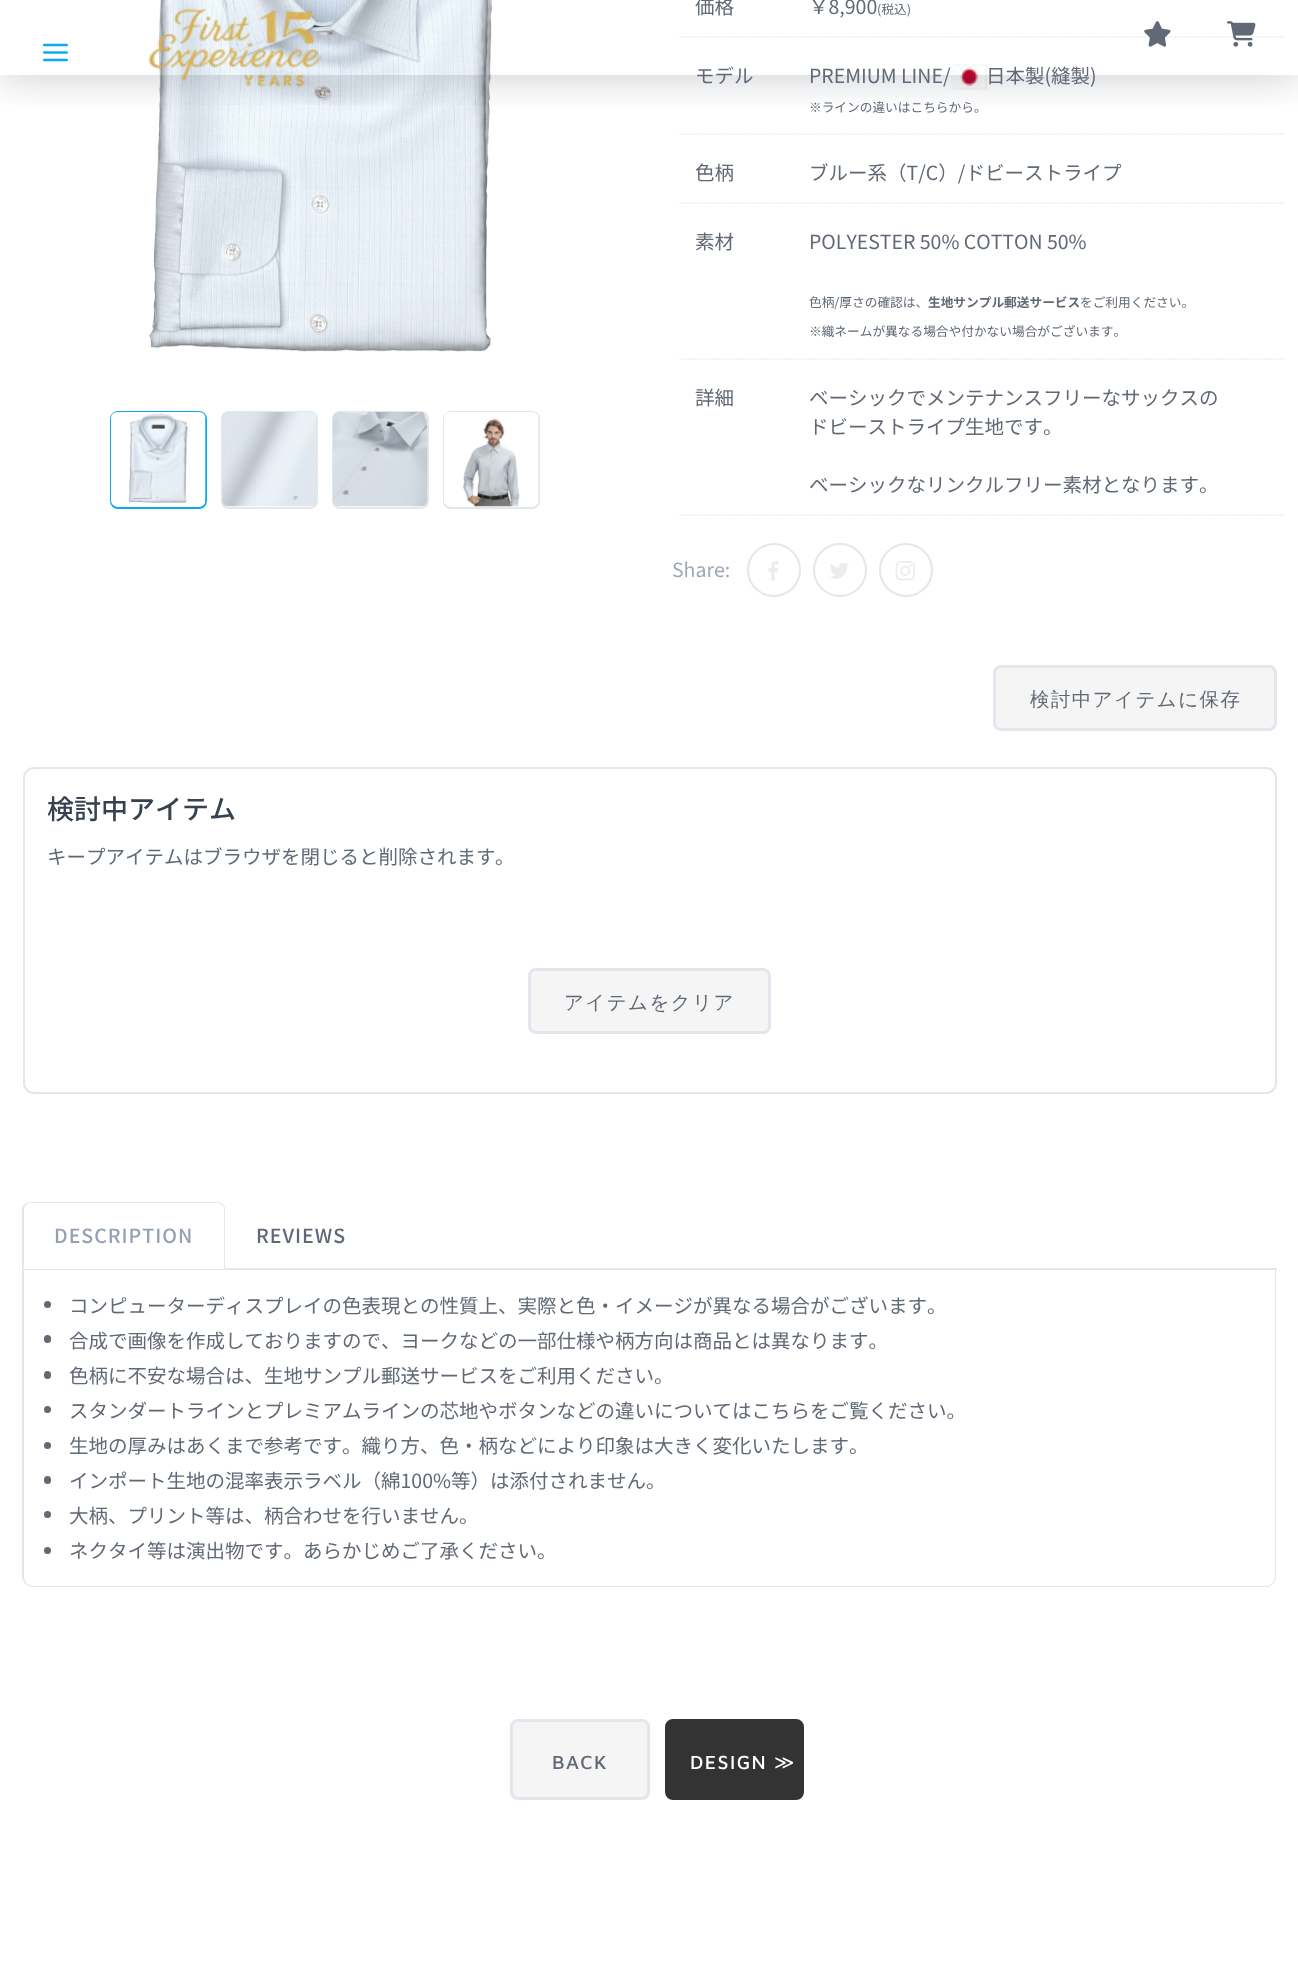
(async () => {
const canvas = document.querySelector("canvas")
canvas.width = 1298
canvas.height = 1977
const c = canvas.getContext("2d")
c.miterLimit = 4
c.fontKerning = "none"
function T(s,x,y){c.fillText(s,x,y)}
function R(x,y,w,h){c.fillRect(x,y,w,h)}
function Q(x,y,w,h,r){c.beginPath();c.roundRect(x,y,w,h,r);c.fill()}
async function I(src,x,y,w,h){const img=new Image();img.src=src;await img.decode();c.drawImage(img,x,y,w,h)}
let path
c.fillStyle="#fff"
R(0,0,1298,1977)
await I("5.png",149,0,343,352)
path = new Path2D("M679.5 37h604.5")
c.strokeStyle="#eae9e9"
c.lineWidth=1.5
c.setLineDash([1.5,1.5])
c.stroke(path)
path = new Path2D("M679.5 134h604.5")
c.stroke(path)
await I("10.png",951,64,36,26)
c.save()
c.beginPath()
c.rect(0,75,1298,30)
c.clip()
c.fillStyle="#2f384438"
c.filter="blur(19px)"
c.beginPath()
c.rect(0,5,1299,75)
c.fill()
c.filter="none"
c.restore()
await I("1.png",43,43,25,19)
await I("2.png",148,8,174,80)
await I("3.png",1144,21,27,26)
await I("4.png",1227,21,29,26)
c.beginPath()
c.roundRect(111,412,95,96,7)
c.strokeStyle="#0da9ef"
c.lineWidth=2
c.setLineDash([])
c.stroke()
await I("6.png",111,412,95,95)
c.beginPath()
c.roundRect(222,412,95,96,7)
c.strokeStyle="#e1e7ec"
c.stroke()
await I("7.png",222,412,94,95)
c.beginPath()
c.roundRect(333,412,95,96,7)
c.stroke()
await I("8.png",333,412,95,95)
c.beginPath()
c.roundRect(444,412,95,96,7)
c.stroke()
await I("9.png",444,412,95,95)
c.font="19.5px Noto Sans JP"
c.fillStyle="#606975"
T("価格",695,14)
T("￥8,900",809,14)
c.font="12.7px Noto Sans JP"
T("(税込)",877,14)
c.font="19.5px Noto Sans JP"
T("モデル",695,83)
T("PREMIUM LINE/",809,83)
T("日本製(縫製)",986,83)
c.font="12.7px Noto Sans JP"
T("※ラインの違いはこちらから。",809,112)
path = new Path2D("M679.5 203h604.5")
c.strokeStyle="#eae9e9"
c.lineWidth=1.5
c.setLineDash([1.5,1.5])
c.stroke(path)
c.font="19.5px Noto Sans JP"
T("色柄",695,180)
T("ブルー系（T/C）/ドビーストライプ",809,180)
path = new Path2D("M679.5 359h604.5")
c.stroke(path)
T("素材",695,249)
T("POLYESTER 50% COTTON 50%",809,249)
c.font="12.7px Noto Sans JP"
T("色柄/厚さの確認は、",809,307)
c.font="bold 12.7px Noto Sans JP"
T("生地サンプル郵送サービス",928,307)
c.font="12.7px Noto Sans JP"
T("をご利用ください。",1080,307)
T("※織ネームが異なる場合や付かない場合がございます。",809,336)
path = new Path2D("M679.5 515h604.5")
c.stroke(path)
c.font="19.5px Noto Sans JP"
T("詳細",695,405)
T("ベーシックでメンテナンスフリーなサックスの",809,405)
T("ドビーストライプ生地です。",809,434)
T("ベーシックなリンクルフリー素材となります。",809,492)
c.fillStyle="#9da9b9"
T("Share:",672,577)
c.beginPath()
c.arc(774,570,26,0,7)
c.strokeStyle="#e1e7ec"
c.lineWidth=2
c.setLineDash([])
c.stroke()
await I("11.png",768,561,11,20)
c.beginPath()
c.arc(840,570,26,0,7)
c.stroke()
await I("12.png",830,563,19,16)
c.beginPath()
c.arc(906,570,26,0,7)
c.stroke()
await I("13.png",895,561,20,20)
c.fillStyle="#f5f5f5"
c.beginPath()
c.roundRect(994.5,666.5,281,63,6.5)
c.fill()
c.lineWidth=3
c.stroke()
c.letterSpacing="1.4px"
c.font="500 19.5px WenQuanYi Zen Hei"
c.fillStyle="#606975"
T("検討中アイテムに保存",1030,706)
c.beginPath()
c.roundRect(24,768,1252,325,10)
c.lineWidth=2
c.stroke()
c.letterSpacing="0px"
c.font="500 27px Noto Sans JP"
c.fillStyle="#374250"
T("検討中アイテム",47,819)
c.font="19.5px Noto Sans JP"
c.fillStyle="#606975"
T("キープアイテムはブラウザを閉じると削除されます",47,864)
T("。",495,864)
c.fillStyle="#f5f5f5"
c.beginPath()
c.roundRect(529.5,969.5,240,63,6.5)
c.fill()
c.lineWidth=3
c.stroke()
c.letterSpacing="1.4px"
c.font="500 19.5px WenQuanYi Zen Hei"
c.fillStyle="#606975"
T("アイテムをクリア",564,1009)
c.fillStyle="#e1e7ec"
R(23,1268,1254,2)
c.fillStyle="#fff"
c.beginPath()
c.roundRect(23,1202,202,67,[8,8,0,0])
c.fill()
c.fillStyle="#e1e7ec"
path = new Path2D("M30 1202c-2 0-4 1-5 2l1 1c1-1 2-2 4-2h189l3 2l1-1c-1-1-3-2-5-2z")
c.fill(path)
path = new Path2D("M223 1204c1 1 2 3 2 5v60l-1-1v-59c0-2-1-3-2-4z")
c.fill(path)
c.fillStyle="#fff"
path = new Path2D("M225 1269l-1-1h-200l-2 1z")
c.fill(path)
c.fillStyle="#e1e7ec"
path = new Path2D("M22 1269l2-1v-59c0-1 1-3 2-4l-1-1l-3 3z")
c.fill(path)
c.letterSpacing="1px"
c.font="500 19.5px Noto Sans JP"
c.fillStyle="#94a1b3"
T("DESCRIPTION",54,1243)
c.fillStyle="#606975"
T("REVIEWS",256,1243)
c.fillStyle="#e1e7ec"
path = new Path2D("M22 1269h1254v307c0 6-4 11-10 11h-1233c-6 0-11-5-11-11zm2 0h1251v307c0 5-4 10-9 10h-1233c-5 0-9-5-9-10z")
c.fill(path,"evenodd")
c.fillStyle="#606975"
c.beginPath()
c.arc(47.5,1304.5,3.5,0,7)
c.fill()
c.letterSpacing="0px"
c.font="19.5px Noto Sans JP"
T("コンピューターディスプレイの色表現との性質上、実際と色・イメージが異なる場合がございます。",69,1313)
Q(44,1335,7,8,3.5)
T("合成で画像を作成しておりますので、ヨークなどの一部仕様や柄方向は商品とは異なります。",69,1348)
Q(44,1371,7,8,3.5)
T("色柄に不安な場合は、生地サンプル郵送サービスをご利用ください。",69,1383)
c.beginPath()
c.arc(47.5,1409.5,3.5,0,7)
c.fill()
T("スタンダートラインとプレミアムラインの芯地やボタンなどの違いについてはこちらをご覧ください。",69,1418)
c.beginPath()
c.arc(47.5,1445.5,3.5,0,7)
c.fill()
T("生地の厚みはあくまで参考です。織り方、色・柄などにより印象は大きく変化いたします",69,1453)
T("。",849,1453)
Q(44,1476,7,8,3.5)
T("インポート生地の混率表示ラベル（綿100%等）は添付されません。",69,1488)
c.beginPath()
c.arc(47.5,1514.5,3.5,0,7)
c.fill()
T("大柄、プリント等は、柄合わせを行いません。",69,1523)
c.beginPath()
c.arc(47.5,1550.5,3.5,0,7)
c.fill()
T("ネクタイ等は演出物です。あらかじめご了承ください。",69,1558)
c.fillStyle="#f5f5f5"
c.beginPath()
c.roundRect(511.5,1720.5,137,78,6.5)
c.fill()
c.stroke()
c.letterSpacing="1.4px"
c.font="500 19.5px Maven Pro"
c.fillStyle="#606975"
T("BACK",552,1769)
c.fillStyle="#333"
c.beginPath()
c.roundRect(666.5,1720.5,136,78,6.5)
c.fill()
c.strokeStyle="#333"
c.stroke()
c.fillStyle="#fff"
T("DESIGN",690,1769)
c.font="19.5px DejaVu Sans"
T("≫",774,1769)
})()
